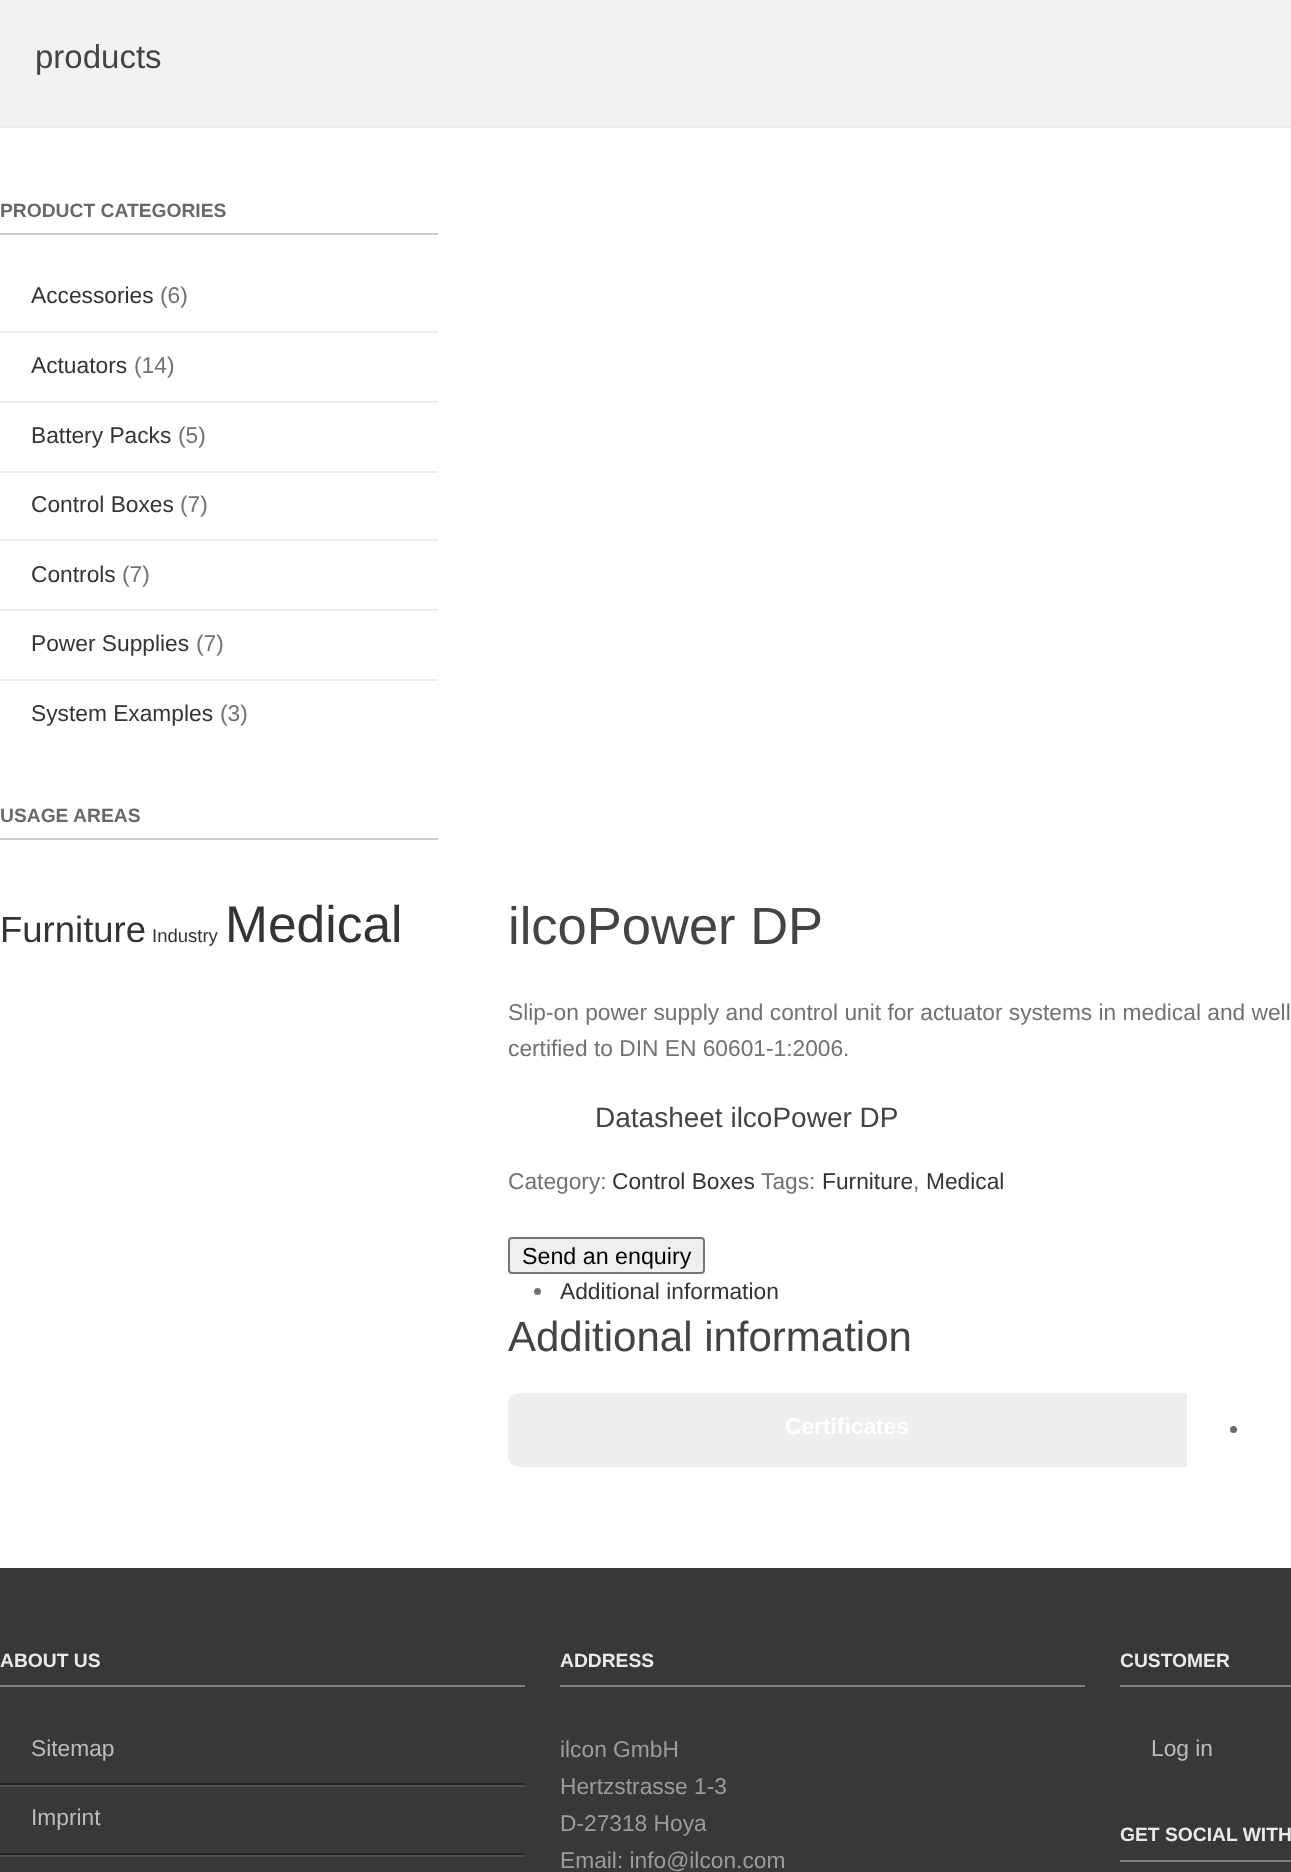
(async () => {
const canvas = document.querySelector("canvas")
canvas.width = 1291
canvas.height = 1872
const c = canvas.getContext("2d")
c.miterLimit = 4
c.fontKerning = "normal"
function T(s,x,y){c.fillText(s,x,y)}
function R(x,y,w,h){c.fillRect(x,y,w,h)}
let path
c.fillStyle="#fff"
R(0,0,1291,1872)
c.fillStyle="#f2f2f4"
R(0,0,1291,126)
c.fillStyle="#ebebeb"
R(0,126,1291,2)
c.font="33px Liberation Sans"
c.fillStyle="#444"
T("products",35,68)
c.font="bold 19.25px Liberation Sans"
c.fillStyle="#696969"
T("PRODUCT CATEGORIES",0,217)
c.fillStyle="#ccc"
R(0,233,438,2)
c.fillStyle="#ededed"
R(0,331,438,2)
c.font="22.75px Liberation Sans"
c.fillStyle="#343434"
T("Accessories",31,303)
c.fillStyle="#727272"
T("(6)",160,303)
c.fillStyle="#ededed"
R(0,401,438,2)
c.fillStyle="#343434"
T("Actuators",31,373)
c.fillStyle="#727272"
T("(14)",134,373)
c.fillStyle="#ededed"
R(0,471,438,2)
c.fillStyle="#343434"
T("Battery Packs",31,443)
c.fillStyle="#727272"
T("(5)",178,443)
c.fillStyle="#ededed"
R(0,539,438,2)
c.fillStyle="#343434"
T("Control Boxes",31,512)
c.fillStyle="#727272"
T("(7)",180,512)
c.fillStyle="#ededed"
R(0,609,438,2)
c.fillStyle="#343434"
T("Controls",31,582)
c.fillStyle="#727272"
T("(7)",122,582)
c.fillStyle="#ededed"
R(0,679,438,2)
c.fillStyle="#343434"
T("Power Supplies",31,651)
c.fillStyle="#727272"
T("(7)",196,651)
c.fillStyle="#343434"
T("System Examples",31,721)
c.fillStyle="#727272"
T("(3)",220,721)
c.font="bold 19.25px Liberation Sans"
c.fillStyle="#696969"
T("USAGE AREAS",0,822)
c.fillStyle="#ccc"
R(0,838,438,2)
c.font="36.5px Liberation Sans"
c.fillStyle="#343434"
T("Furniture",0,942)
c.font="18.5px Liberation Sans"
T("Industry",152,942)
c.font="51.5px Liberation Sans"
T("Medical",225,942)
c.font="52.5px Liberation Sans"
c.fillStyle="#444"
T("ilcoPower DP",508,944)
c.font="22.75px Liberation Sans"
c.fillStyle="#727272"
T("Slip-on power supply and control unit for actuator systems in medical and well",508,1020)
T("certified to DIN EN 60601-1:2006.",508,1056)
c.font="28px Liberation Sans"
c.fillStyle="#444"
T("Datasheet ilcoPower DP",595,1127)
c.font="22.75px Liberation Sans"
c.fillStyle="#727272"
T("Category:",508,1189)
c.fillStyle="#343434"
T("Control Boxes",612,1189)
c.fillStyle="#727272"
T("Tags:",761,1189)
c.fillStyle="#343434"
T("Furniture",822,1189)
c.fillStyle="#727272"
T(",",913,1189)
c.fillStyle="#343434"
T("Medical",926,1189)
c.fillStyle="#efefef"
c.beginPath()
c.roundRect(509,1238,195,35,3)
c.fill()
c.strokeStyle="#767676"
c.lineWidth=2
c.stroke()
c.font="23.25px Liberation Sans"
c.fillStyle="#000"
T("Send an enquiry",522,1264)
c.fillStyle="#727272"
c.beginPath()
c.arc(537.5,1291.5,3.5,0,7)
c.fill()
c.font="22.75px Liberation Sans"
c.fillStyle="#343434"
T("Additional information",560,1299)
c.font="42px Liberation Sans"
c.fillStyle="#444"
T("Additional information",508,1351)
c.fillStyle="#eee"
path = new Path2D("M519 1393h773v74h-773c-6 0-11-5-11-11v-52c0-6 5-11 11-11z")
c.fill(path)
c.font="bold 22.75px Liberation Sans"
c.fillStyle="#fff"
T("Certificates",785,1434)
R(1187,1393,104,74)
c.fillStyle="#696969"
c.beginPath()
c.arc(1233.5,1429.5,3.5,0,7)
c.fill()
c.fillStyle="#373839"
R(0,1568,1291,304)
c.font="bold 19.25px Liberation Sans"
c.fillStyle="#eaeaea"
T("ABOUT US",0,1667)
c.fillStyle="#7e7e7e"
R(0,1685,525,2)
c.fillStyle="#4f5050"
R(0,1785,525,2)
c.fillStyle="#232323"
R(0,1783,525,2)
c.font="22.75px Liberation Sans"
c.fillStyle="#bcbcbc"
T("Sitemap",31,1756)
c.fillStyle="#4f5050"
R(0,1855,525,2)
c.fillStyle="#232323"
R(0,1853,525,2)
c.fillStyle="#bcbcbc"
T("Imprint",31,1825)
c.font="bold 19.25px Liberation Sans"
c.fillStyle="#eaeaea"
T("ADDRESS",560,1667)
c.fillStyle="#7e7e7e"
R(560,1685,525,2)
c.font="22.75px Liberation Sans"
c.fillStyle="#9c9c9c"
T("ilcon GmbH",560,1757)
T("Hertzstrasse 1-3",560,1794)
T("D-27318 Hoya",560,1831)
T("Email: info@ilcon.com",560,1868)
c.font="bold 19.25px Liberation Sans"
c.fillStyle="#eaeaea"
T("CUSTOMER",1120,1667)
c.fillStyle="#7e7e7e"
R(1120,1685,171,2)
c.font="22.75px Liberation Sans"
c.fillStyle="#bcbcbc"
T("Log in",1151,1756)
c.font="bold 19.25px Liberation Sans"
c.fillStyle="#eaeaea"
T("GET SOCIAL WITH",1120,1841)
c.fillStyle="#7e7e7e"
R(1120,1860,171,2)
})()
